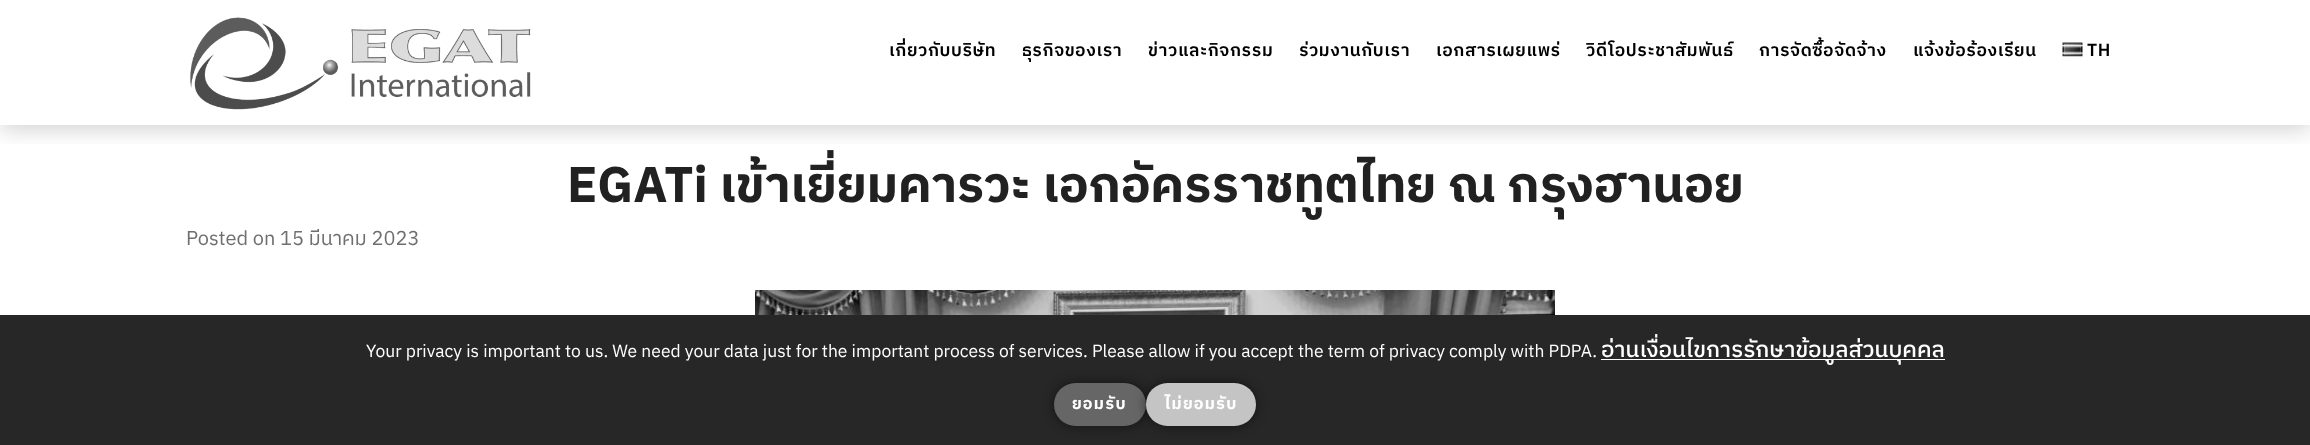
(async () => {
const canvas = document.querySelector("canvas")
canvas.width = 2310
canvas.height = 445
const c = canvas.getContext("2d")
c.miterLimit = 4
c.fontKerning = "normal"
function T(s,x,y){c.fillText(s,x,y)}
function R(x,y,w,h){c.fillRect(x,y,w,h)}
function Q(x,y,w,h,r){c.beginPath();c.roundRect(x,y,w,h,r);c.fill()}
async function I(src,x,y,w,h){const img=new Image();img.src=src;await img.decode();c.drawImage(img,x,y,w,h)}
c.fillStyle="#fff"
R(0,0,2310,445)
c.save()
c.beginPath()
c.rect(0,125,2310,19)
c.clip()
c.fillStyle="#00000033"
c.filter="blur(12.5px)"
c.beginPath()
c.rect(0,3,2310,125)
c.fill()
c.filter="none"
c.restore()
await I("1.png",190,17,341,93)
c.letterSpacing="0.6px"
c.font="600 17.5px IBM Plex Sans Thai"
c.fillStyle="#000"
T("เกี่ยวกับบริษัท",889,56)
T("ธุรกิจของเรา",1022,56)
T("ข่าวและกิจกรรม",1148,56)
T("ร่วมงานกับเรา",1299,56)
T("เอกสารเผยแพร่",1436,56)
T("วิดีโอประชาสัมพันธ์",1586,56)
T("การจัดซื้อจัดจ้าง",1759,56)
T("แจ้งข้อร้องเรียน",1913,56)
await I("2.png",2062,42,21,15)
T("TH",2087,56)
c.letterSpacing="0px"
c.font="bold 50px IBM Plex Sans Thai"
c.fillStyle="#212121"
T("EGATi เข้าเยี่ยมคารวะ เอกอัครราชทูตไทย ณ กรุงฮานอย",567,202)
c.font="20px IBM Plex Sans Thai"
c.fillStyle="#6f6f6f"
T("Posted on 15 มีนาคม 2023",186,245)
await I("3.png",755,290,800,25)
c.fillStyle="#272727"
R(0,315,2310,130)
c.font="17.5px IBM Plex Sans Thai"
c.fillStyle="#fff"
T("Your privacy is important to us. We need your data just for the important process of services. Please allow if you accept the term of privacy comply with PDPA.",366,357)
R(1601,359,344,1)
c.font="500 22.5px IBM Plex Sans Thai"
T("อ่านเงื่อนไขการรักษาข้อมูลส่วนบุคคล",1601,357)
c.fillStyle="#00000080"
c.filter="blur(6px)"
c.beginPath()
c.roundRect(1054,383,92,43,21.5)
c.fill()
c.filter="none"
c.fillStyle="#666"
Q(1054,383,92,43,21.5)
c.letterSpacing="1.25px"
c.font="bold 16.25px IBM Plex Sans Thai"
c.fillStyle="#fff"
T("ยอมรับ",1072,409)
c.fillStyle="#00000080"
c.filter="blur(6px)"
c.beginPath()
c.roundRect(1146,383,110,43,21.5)
c.fill()
c.filter="none"
c.fillStyle="#c4c4c4"
Q(1146,383,110,43,21.5)
c.fillStyle="#fff"
T("ไม่ยอมรับ",1165,409)
})()
